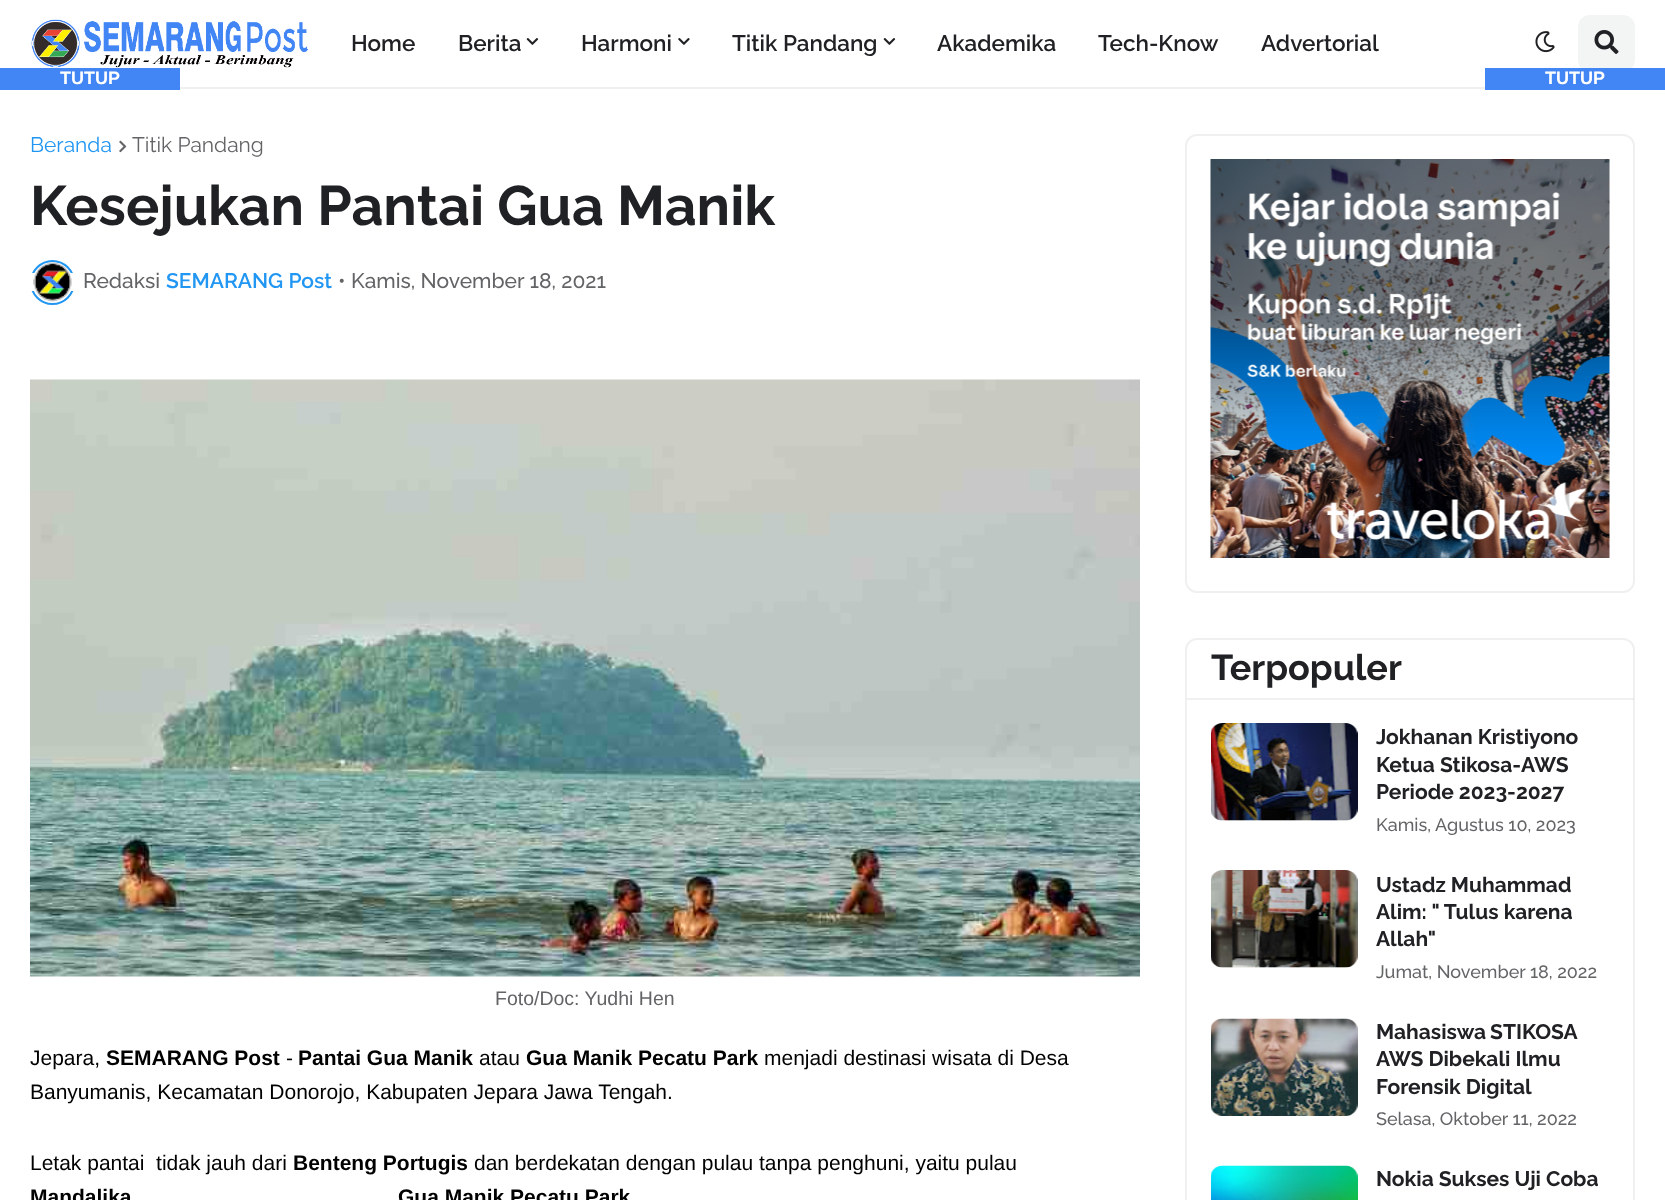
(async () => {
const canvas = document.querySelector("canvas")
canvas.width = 1665
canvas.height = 1200
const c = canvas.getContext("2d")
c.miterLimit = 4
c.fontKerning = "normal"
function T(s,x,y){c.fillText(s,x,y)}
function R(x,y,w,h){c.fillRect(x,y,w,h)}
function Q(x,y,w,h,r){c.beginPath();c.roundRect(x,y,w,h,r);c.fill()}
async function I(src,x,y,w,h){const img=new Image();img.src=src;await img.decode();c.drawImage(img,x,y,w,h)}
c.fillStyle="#fff"
R(0,0,1665,1200)
c.fillStyle="#f0f0f0"
R(180,87,1305,2)
await I("1.png",31,19,277,49)
c.font="600 22.5px Raleway"
c.fillStyle="#202124"
T("Home",351,51)
T("Berita",458,51)
await I("2.png",526,38,13,7)
T("Harmoni",581,51)
await I("3.png",678,38,12,7)
T("Titik Pandang",732,51)
await I("2.png",883,38,13,7)
T("Akademika",937,51)
T("Tech-Know",1098,51)
T("Advertorial",1261,51)
await I("4.png",1535,31,20,22)
c.fillStyle="#f3f5f5"
Q(1578,15,57,57,12)
await I("5.png",1594,30,25,24)
c.font="21px Raleway"
c.fillStyle="#2196f3"
T("Beranda",30,152)
await I("6.png",119,140,8,13)
c.fillStyle="#636466"
T("Titik Pandang",132,152)
c.font="bold 55.5px Raleway"
c.fillStyle="#202124"
T("Kesejukan Pantai Gua Manik",30,225)
c.beginPath()
c.arc(52.5,282.5,21.5,0,7)
c.strokeStyle="#2196f3"
c.lineWidth=2
c.stroke()
c.fillStyle="#fff"
R(30,273,45,18)
await I("7.png",33,262,39,40)
c.font="500 21px Raleway"
c.fillStyle="#636466"
T("Redaksi",83,288)
c.font="600 21px Raleway"
c.fillStyle="#2196f3"
T("SEMARANG Post",166,288)
c.font="500 21px Raleway"
c.fillStyle="#636466"
T("•",338,288)
T("Kamis, November 18, 2021",351,288)
await I("8.png",30,379,1110,598)
c.font="19.5px Liberation Sans"
T("Foto/Doc: Yudhi Hen",495,1005)
c.font="21px Liberation Sans"
c.fillStyle="#000"
T("Jepara,",30,1065)
c.font="bold 21px Liberation Sans"
T("SEMARANG Post",106,1065)
c.font="21px Liberation Sans"
T("-",286,1065)
c.font="bold 21px Liberation Sans"
T("Pantai Gua Manik",298,1065)
c.font="21px Liberation Sans"
T("atau",479,1065)
c.font="bold 21px Liberation Sans"
T("Gua Manik Pecatu Park",526,1065)
c.font="21px Liberation Sans"
T("menjadi destinasi wisata di Desa",764,1065)
T("Banyumanis, Kecamatan Donorojo, Kabupaten Jepara Jawa Tengah.",30,1099)
T("Letak pantai  tidak jauh dari",30,1170)
c.font="bold 21px Liberation Sans"
T("Benteng Portugis",293,1170)
c.font="21px Liberation Sans"
T("dan berdekatan dengan pulau tanpa penghuni, yaitu pulau",474,1170)
c.font="bold 21px Liberation Sans"
T("Mandalika",30,1204)
T("Gua Manik Pecatu Park",398,1204)
c.beginPath()
c.roundRect(1186,135,448,457,11)
c.strokeStyle="#f0f0f0"
c.stroke()
await I("9.png",1210,159,400,399)
c.beginPath()
c.roundRect(1186,639,448,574,11)
c.stroke()
c.fillStyle="#9b9b9b26"
R(1187,698,447,2)
c.font="bold 36px Raleway"
c.fillStyle="#202124"
T("Terpopuler",1211,680)
c.fillStyle="#f3f5f5"
Q(1211,723,147,98,12)
await I("10.png",1211,723,147,98)
c.font="bold 21px Raleway"
c.fillStyle="#202124"
T("Jokhanan Kristiyono",1376,744)
T("Ketua Stikosa-AWS",1376,772)
T("Periode 2023-2027",1376,799)
c.font="500 18px Raleway"
c.fillStyle="#636466"
T("Kamis, Agustus 10, 2023",1376,831)
c.fillStyle="#f3f5f5"
Q(1211,870,147,98,12)
await I("11.png",1211,870,147,98)
c.font="bold 21px Raleway"
c.fillStyle="#202124"
T("Ustadz Muhammad",1376,892)
T("Alim: \" Tulus karena",1376,919)
T("Allah\"",1376,946)
c.font="500 18px Raleway"
c.fillStyle="#636466"
T("Jumat, November 18, 2022",1376,978)
c.fillStyle="#f3f5f5"
Q(1211,1019,147,97,12)
await I("12.png",1211,1018,147,98)
c.wordSpacing="-1px"
c.font="bold 21px Raleway"
c.fillStyle="#202124"
T("Mahasiswa STIKOSA",1376,1039)
c.wordSpacing="0px"
T("AWS Dibekali Ilmu",1376,1066)
T("Forensik Digital",1376,1094)
c.font="500 18px Raleway"
c.fillStyle="#636466"
T("Selasa, Oktober 11, 2022",1376,1125)
c.fillStyle="#f3f5f5"
Q(1211,1166,147,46,12)
await I("13.png",1211,1165,147,35)
c.font="bold 21px Raleway"
c.fillStyle="#202124"
T("Nokia Sukses Uji Coba",1376,1186)
c.fillStyle="#4285f4"
R(0,68,180,22)
c.font="bold 18px Liberation Sans"
c.fillStyle="#fff"
T("TUTUP",60,84)
c.fillStyle="#4285f4"
R(1485,68,180,22)
c.fillStyle="#fff"
T("TUTUP",1545,84)
})()
